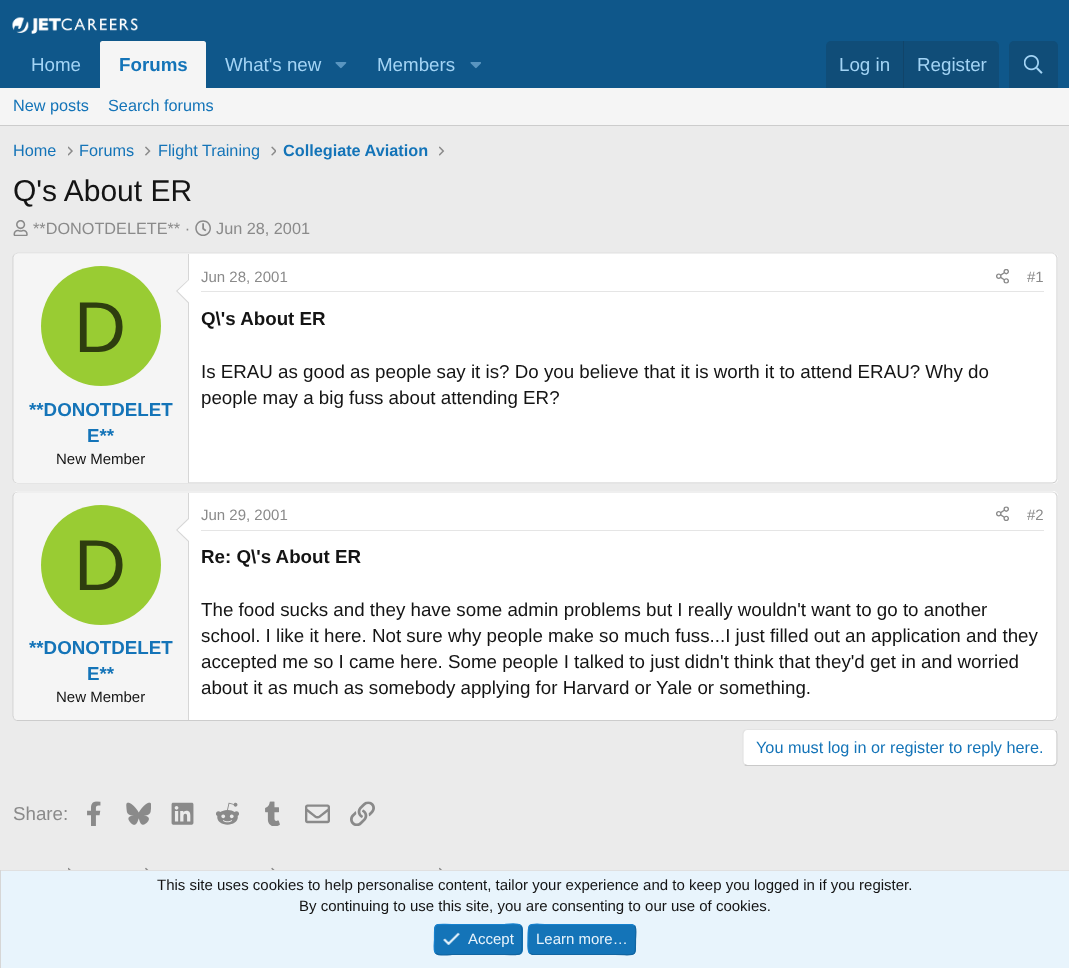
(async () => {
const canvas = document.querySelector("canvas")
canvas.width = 1069
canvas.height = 968
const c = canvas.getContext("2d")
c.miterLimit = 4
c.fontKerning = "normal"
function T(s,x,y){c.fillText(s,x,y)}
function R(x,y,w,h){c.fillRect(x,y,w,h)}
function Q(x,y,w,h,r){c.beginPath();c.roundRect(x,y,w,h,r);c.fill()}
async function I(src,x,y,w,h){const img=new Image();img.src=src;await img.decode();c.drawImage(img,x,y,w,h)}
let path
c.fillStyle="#ebebeb"
R(0,0,1069,968)
c.fillStyle="#0f578a"
R(0,0,1069,88)
await I("1.png",12,17,126,17)
c.font="18.75px Liberation Sans"
c.fillStyle="#a3d4f5"
T("Home",31,71)
c.fillStyle="#f5f5f5"
c.beginPath()
c.roundRect(100,41,106,47,[2.5,2.5,0,0])
c.fill()
c.font="bold 18.75px Liberation Sans"
c.fillStyle="#1474b8"
T("Forums",119,71)
c.font="18.75px Liberation Sans"
c.fillStyle="#a3d4f5"
T("What's new",225,71)
await I("2.png",335,62,12,7)
T("Members",377,71)
await I("3.png",470,62,11,7)
c.fillStyle="#104d78"
c.beginPath()
c.roundRect(826,41,173,47,[5,5,0,0])
c.fill()
c.fillStyle="#a3d4f5"
T("Log in",839,71)
c.fillStyle="#114469"
R(903,41,1,47)
c.fillStyle="#a3d4f5"
T("Register",917,71)
c.fillStyle="#104d78"
c.beginPath()
c.roundRect(1009,41,49,47,[5,5,0,0])
c.fill()
await I("4.png",1024,55,19,19)
c.fillStyle="#f5f5f5"
R(0,88,1069,37)
c.fillStyle="#ccc"
R(0,125,1069,1)
c.font="16.25px Liberation Sans"
c.fillStyle="#1474b8"
T("New posts",13,111)
T("Search forums",108,111)
T("Home",13,156)
await I("5.png",68,146,5,10)
T("Forums",79,156)
await I("6.png",145,146,6,10)
T("Flight Training",158,156)
await I("7.png",271,146,5,10)
c.font="bold 16.25px Liberation Sans"
T("Collegiate Aviation",283,156)
await I("8.png",439,146,6,10)
c.font="30px Liberation Sans"
c.fillStyle="#141414"
T("Q's About ER",13,201)
await I("9.png",13,220,15,16)
c.font="16.25px Liberation Sans"
c.fillStyle="#8a8a8a"
T("**DONOTDELETE** ·",33,234)
await I("10.png",195,220,16,16)
T("Jun 28, 2001",216,234)
c.fillStyle="#fff"
Q(13,253,1045,231,5)
path = new Path2D("M14.5 254.5l3-1.5h1035l3 1.5")
c.strokeStyle="#e0e0e0"
c.lineWidth=1.2
c.stroke(path)
path = new Path2D("M1055.5 254.5l1.5 3v221.5l-1.5 3")
c.strokeStyle="#d6d6d6"
c.stroke(path)
path = new Path2D("M1055.5 482l-3 1h-1035l-3-1")
c.strokeStyle="#ccc"
c.stroke(path)
path = new Path2D("M14.5 482l-1.5-3v-222l1.5-2.5")
c.strokeStyle="#d6d6d6"
c.stroke(path)
c.fillStyle="#f5f5f5"
c.beginPath()
c.roundRect(14,254,175,229,[4,0,0,4])
c.fill()
c.fillStyle="#d6d6d6"
R(188,254,1,229)
path = new Path2D("M189 279v25l-13-13z")
c.fill(path)
c.fillStyle="#fff"
path = new Path2D("M189 280v22.5l-11.5-11.5z")
c.fill(path)
c.fillStyle="#9c3"
c.beginPath()
c.arc(101,326,60,0,7)
c.fill()
c.font="72px Liberation Sans"
c.fillStyle="#2e3d0f"
T("D",74,352)
c.font="bold 18.75px Liberation Sans"
c.fillStyle="#1474b8"
T("**DONOTDELET",29,416)
T("E**",87,442)
c.font="15px Liberation Sans"
c.fillStyle="#141414"
T("New Member",56,464)
c.fillStyle="#e5e5e5"
R(201,291,843,1)
c.fillStyle="#8a8a8a"
T("Jun 28, 2001",201,282)
await I("11.png",996,269,13,15)
T("#1",1027,282)
c.font="bold 18.75px Liberation Sans"
c.fillStyle="#141414"
T("Q\\'s About ER",201,325)
c.font="18.75px Liberation Sans"
T("Is ERAU as good as people say it is? Do you believe that it is worth it to attend ERAU? Why do",201,378)
T("people may a big fuss about attending ER?",201,404)
c.fillStyle="#fff"
Q(13,491,1045,230,5)
path = new Path2D("M14.5 493l3-1h1035l3 1")
c.strokeStyle="#e0e0e0"
c.stroke(path)
path = new Path2D("M1055.5 493l1.5 3v183.5v36.5l-1.5 3.5")
c.strokeStyle="#d6d6d6"
c.stroke(path)
path = new Path2D("M1055.5 719.5l-3 1h-1035l-3-1")
c.strokeStyle="#ccc"
c.stroke(path)
path = new Path2D("M14.5 719.5l-1.5-3.5v-220l1.5-3")
c.strokeStyle="#d6d6d6"
c.stroke(path)
c.fillStyle="#f5f5f5"
c.beginPath()
c.roundRect(14,493,175,227,[4,0,0,4])
c.fill()
c.fillStyle="#d6d6d6"
R(188,493,1,227)
path = new Path2D("M189 517.5v25l-13-12.5z")
c.fill(path)
c.fillStyle="#fff"
path = new Path2D("M189 519v22l-11.5-11z")
c.fill(path)
c.fillStyle="#9c3"
c.beginPath()
c.arc(101,565,60,0,7)
c.fill()
c.font="72px Liberation Sans"
c.fillStyle="#2e3d0f"
T("D",74,590)
c.font="bold 18.75px Liberation Sans"
c.fillStyle="#1474b8"
T("**DONOTDELET",29,654)
T("E**",87,680)
c.font="15px Liberation Sans"
c.fillStyle="#141414"
T("New Member",56,702)
c.fillStyle="#e5e5e5"
R(201,530,843,1)
c.fillStyle="#8a8a8a"
T("Jun 29, 2001",201,520)
await I("12.png",996,506,13,15)
T("#2",1027,520)
c.font="bold 18.75px Liberation Sans"
c.fillStyle="#141414"
T("Re: Q\\'s About ER",201,563)
c.font="18.75px Liberation Sans"
T("The food sucks and they have some admin problems but I really wouldn't want to go to another",201,616)
T("school. I like it here. Not sure why people make so much fuss...I just filled out an application and they",201,642)
T("accepted me so I came here. Some people I talked to just didn't think that they'd get in and worried",201,668)
T("about it as much as somebody applying for Harvard or Yale or something.",201,694)
c.fillStyle="#fff"
Q(743,729,315,37,5)
path = new Path2D("M1055.5 730.5c1 1 1.5 2 1.5 3.5v27c0 1.5-.5 2.5-1.5 3.5c-.5 .5-2 1-3 1h-305c-1 0-2.5-.5-3-1")
c.strokeStyle="#c9c9c9"
c.stroke(path)
path = new Path2D("M744.5 764.5c-1-1-1.5-2-1.5-3.5v-27c0-1.5 .5-2.5 1.5-3.5c.5-.5 2-1 3-1h305c1 0 2.5 .5 3 1")
c.strokeStyle="#e3e3e3"
c.stroke(path)
c.font="16.25px Liberation Sans"
c.fillStyle="#1474b8"
T("You must log in or register to reply here.",756,753)
c.font="18.75px Liberation Sans"
c.fillStyle="#8a8a8a"
T("Share:",13,820)
await I("13.png",87,801,14,25)
await I("14.png",126,802,25,23)
await I("15.png",171,802,23,23)
await I("16.png",216,802,23,23)
await I("17.png",265,801,15,25)
await I("18.png",305,804,25,20)
await I("19.png",350,801,25,25)
await I("20.png",68,867,3,3)
await I("21.png",145,867,4,3)
await I("22.png",271,867,4,3)
await I("23.png",439,867,3,3)
c.fillStyle="#e8f4fc"
R(1,871,1068,97)
c.fillStyle="#e0e0e0"
R(0,870,1069,1)
c.fillStyle="#d6d6d6"
R(0,870,1,98)
c.font="15px Liberation Sans"
c.fillStyle="#141414"
T("This site uses cookies to help personalise content, tailor your experience and to keep you logged in if you register.",157,890)
T("By continuing to use this site, you are consenting to our use of cookies.",299,911)
c.fillStyle="#1474b8"
Q(434,924,89,31,5)
path = new Path2D("M520.5 925.5c2.5 3 1.5 10.5 1.5 14c0 17.5 1.5 15-17.5 15h-52.5c-1.5 0-13 2-16.5-1.5")
c.strokeStyle="#1265a1"
c.stroke(path)
path = new Path2D("M435.5 953c-2.5-2.5-1-10.5-1-13.5c0-18-1.5-15 17.5-15h52.5c1 0 13-2 16 1")
c.strokeStyle="#1782cf"
c.stroke(path)
await I("24.png",443,932,17,13)
c.fillStyle="#e8f4fc"
T("Accept",468,944)
c.fillStyle="#1474b8"
Q(528,924,108,31,5)
path = new Path2D("M634.5 925.5c2.5 3 1 10.5 1 14c0 19 1 15-20.5 15h-82.5l-3-1.5")
c.strokeStyle="#1265a1"
c.stroke(path)
path = new Path2D("M529.5 953c-2.5-2.5-1.5-10.5-1.5-13.5c0-19-.5-15 21-15h82l3.5 1")
c.strokeStyle="#1782cf"
c.stroke(path)
c.fillStyle="#e8f4fc"
T("Learn more…",536,944)
})()
